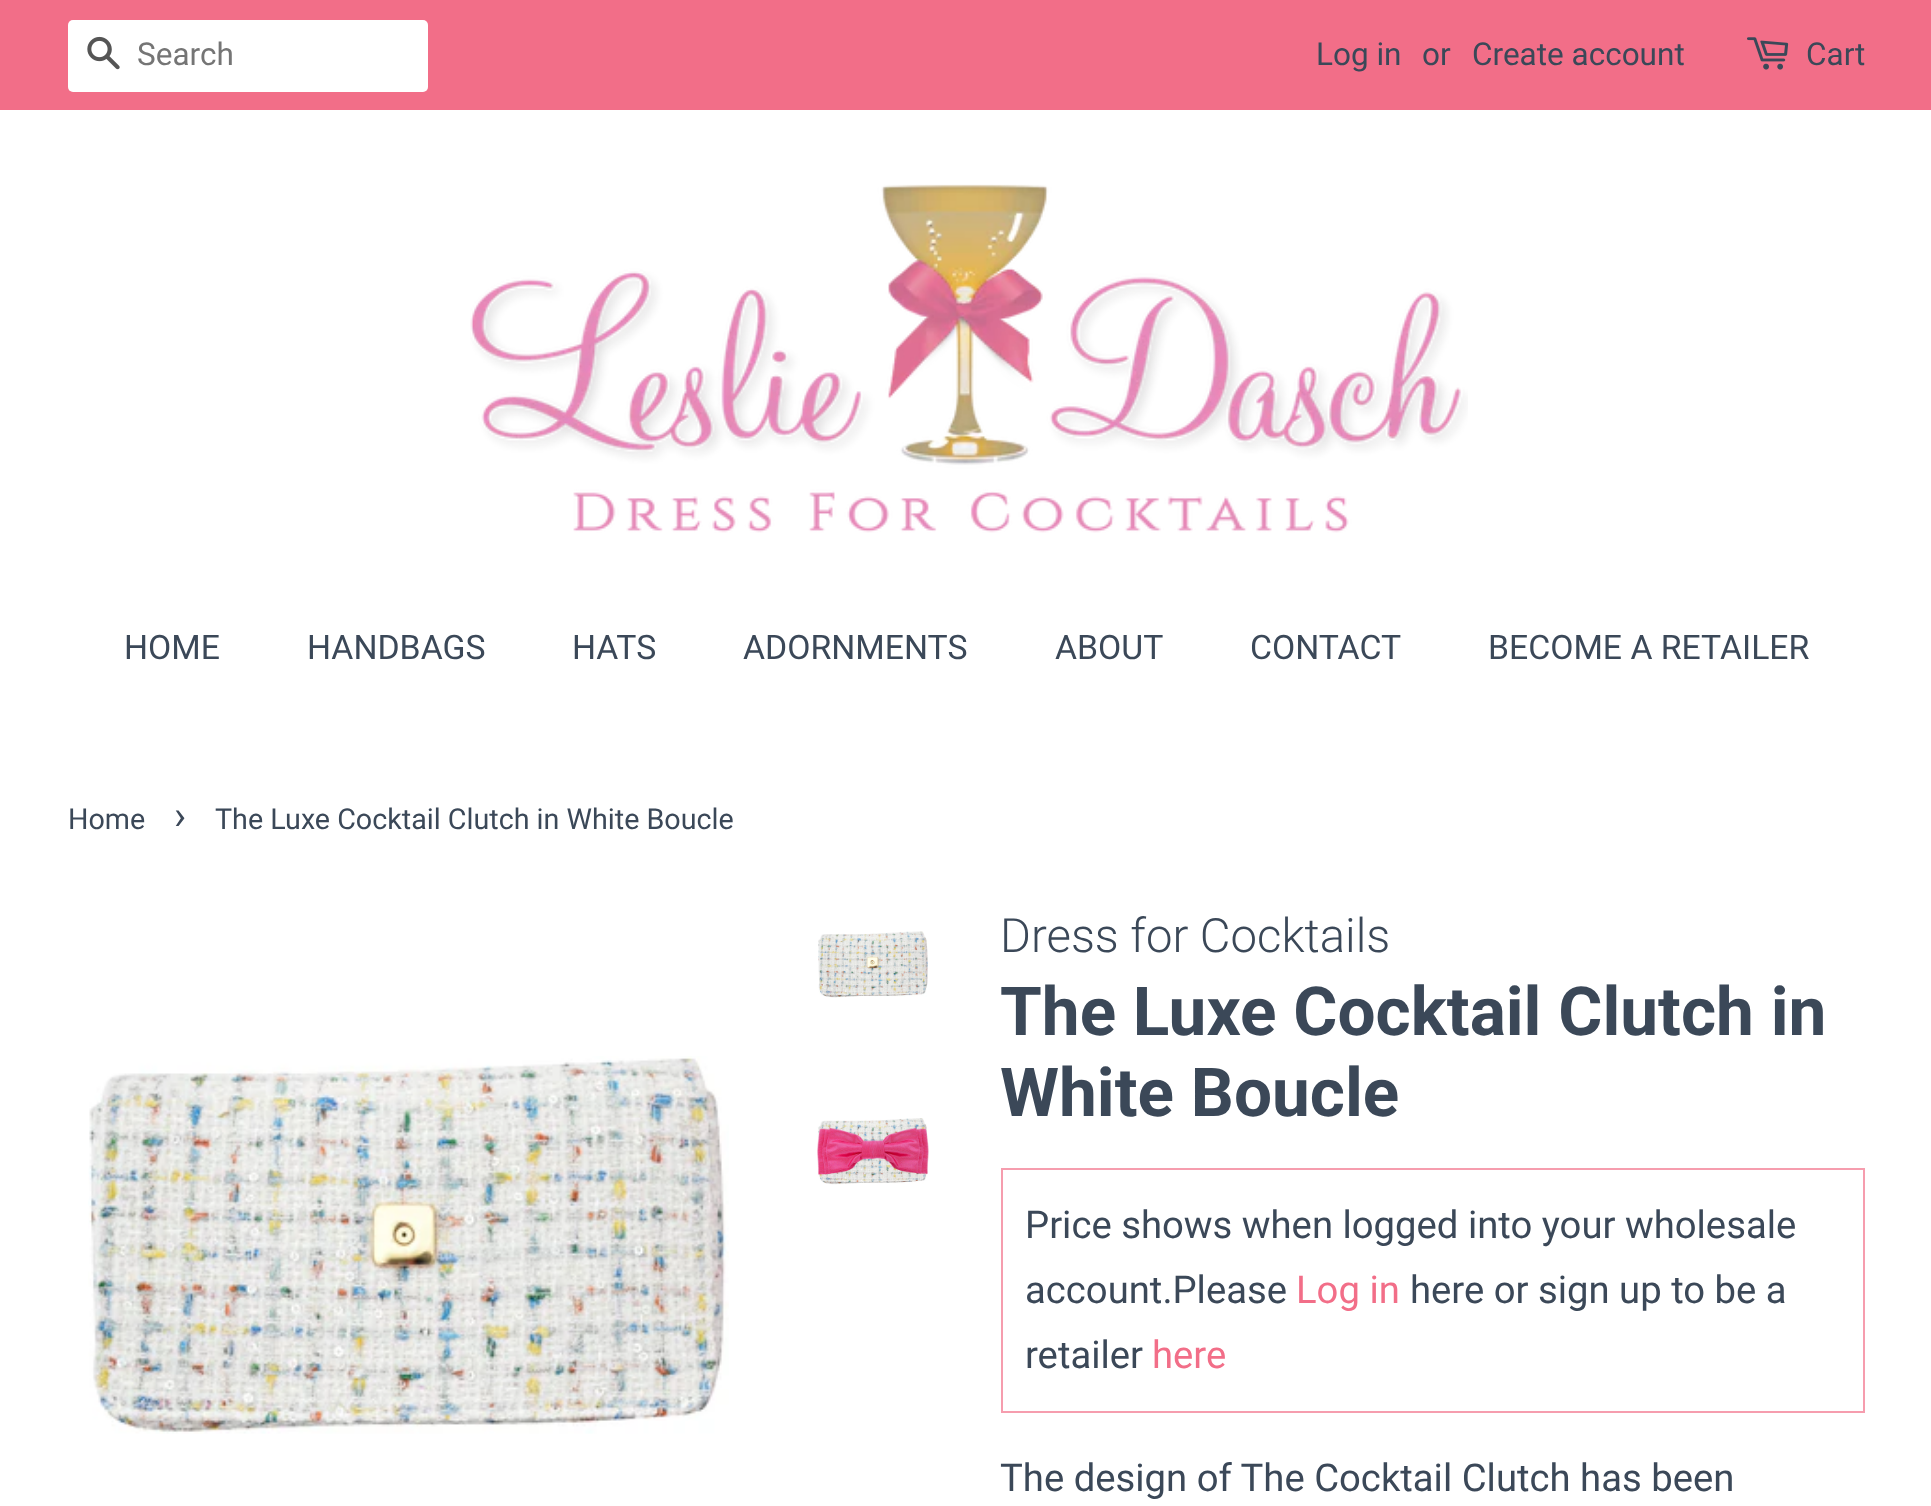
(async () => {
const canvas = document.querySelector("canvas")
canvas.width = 1931
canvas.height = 1506
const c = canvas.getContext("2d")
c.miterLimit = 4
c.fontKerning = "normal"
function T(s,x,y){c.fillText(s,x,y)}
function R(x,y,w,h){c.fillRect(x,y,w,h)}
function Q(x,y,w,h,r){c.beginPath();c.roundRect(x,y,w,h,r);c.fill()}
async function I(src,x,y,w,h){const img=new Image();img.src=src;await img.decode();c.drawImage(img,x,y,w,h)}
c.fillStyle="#fff"
R(0,0,1931,1506)
c.fillStyle="#f26e88"
R(0,0,1931,110)
c.fillStyle="#fff"
Q(68,20,360,72,5)
await I("1.png",87,36,33,34)
c.font="31.5px Roboto"
c.fillStyle="#757575"
T("Search",137,65)
c.fillStyle="#3b4858"
T("Log in",1316,65)
T("or",1422,65)
T("Create account",1472,65)
await I("2.png",1747,37,42,33)
T("Cart",1806,65)
await I("3.png",470,184,998,349)
c.font="33.75px Roboto"
T("HOME",124,659)
T("HANDBAGS",307,659)
T("HATS",572,659)
T("ADORNMENTS",743,659)
T("ABOUT",1055,659)
T("CONTACT",1250,659)
T("BECOME A RETAILER",1488,659)
c.font="28.7px Roboto"
T("Home",68,829)
c.font="40px Roboto"
T("›",174,829)
c.font="28.7px Roboto"
T("The Luxe Cocktail Clutch in White Boucle",215,829)
await I("4.png",88,1056,641,378)
await I("5.png",818,931,110,67)
await I("6.png",817,1118,112,67)
c.font="300 47.25px Roboto"
T("Dress for Cocktails",1000,952)
c.font="bold 67.5px Roboto"
T("The Luxe Cocktail Clutch in",1000,1035)
T("White Boucle",1000,1116)
c.strokeStyle="#f69dae"
c.lineWidth=2
c.strokeRect(1002,1169,862,243)
c.font="38.25px Roboto"
T("Price shows when logged into your wholesale",1025,1238)
T("account.Please",1025,1303)
c.fillStyle="#f26e88"
T("Log in",1296,1303)
c.fillStyle="#3b4858"
T("here or sign up to be a",1410,1303)
T("retailer",1025,1368)
c.fillStyle="#f26e88"
T("here",1152,1368)
c.fillStyle="#3b4858"
T("The design of The Cocktail Clutch has been",1000,1491)
})()
